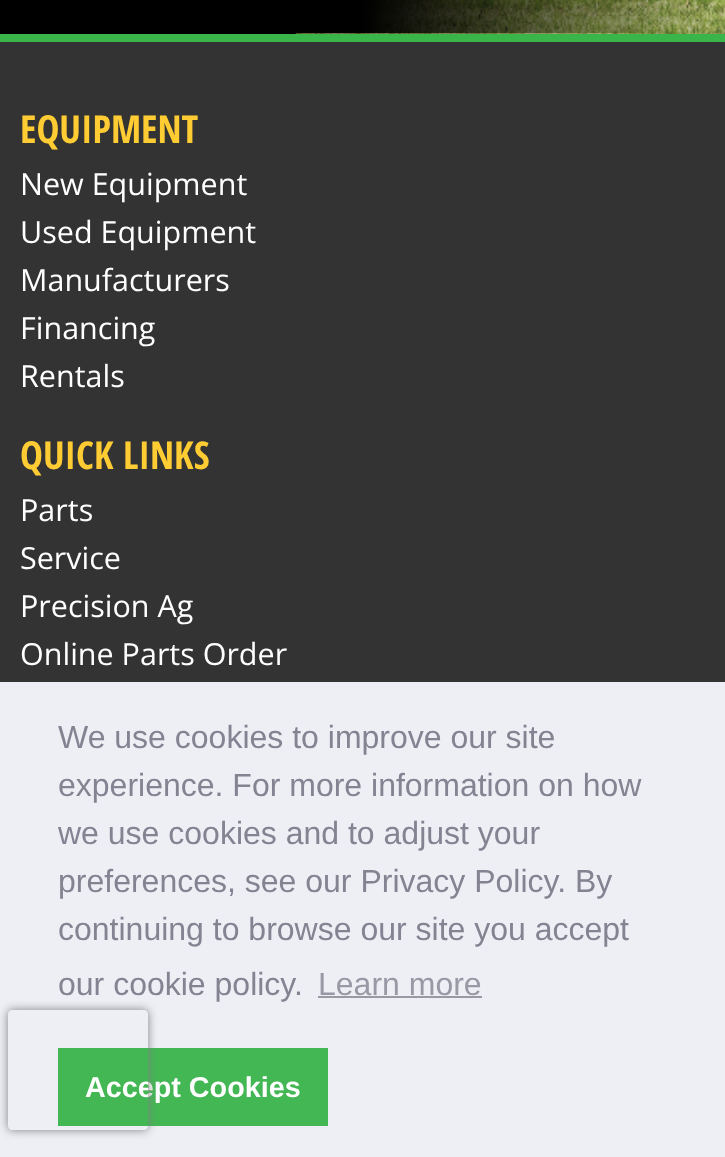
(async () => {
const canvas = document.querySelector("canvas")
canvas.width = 725
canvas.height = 1157
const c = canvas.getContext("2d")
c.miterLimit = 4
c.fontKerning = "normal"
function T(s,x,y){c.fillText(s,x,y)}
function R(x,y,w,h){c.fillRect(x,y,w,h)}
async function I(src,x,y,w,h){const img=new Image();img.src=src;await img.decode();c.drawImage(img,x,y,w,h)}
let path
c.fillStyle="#fff"
R(0,0,725,1157)
await I("1.png",0,0,725,34)
c.fillStyle="#39b54a"
R(0,34,725,8)
c.fillStyle="#333"
R(0,42,725,640)
c.font="bold 38.5px Open Sans Condensed"
c.fillStyle="#fc3"
T("EQUIPMENT",20,143)
c.font="30.5px Open Sans"
c.fillStyle="#fff"
T("New Equipment",20,195)
T("Used Equipment",20,243)
T("Manufacturers",20,291)
T("Financing",20,339)
T("Rentals",20,387)
c.font="bold 38.5px Open Sans Condensed"
c.fillStyle="#fc3"
T("QUICK LINKS",20,469)
c.font="30.5px Open Sans"
c.fillStyle="#fff"
T("Parts",20,521)
T("Service",20,569)
T("Precision Ag",20,617)
T("Online Parts Order",20,665)
c.fillStyle="#edeff5"
R(0,682,725,475)
c.font="32px Liberation Sans"
c.fillStyle="#838391"
T("We use cookies to improve our site",58,748)
T("experience. For more information on how",58,796)
T("we use cookies and to adjust your",58,844)
T("preferences, see our Privacy Policy. By",58,892)
T("continuing to browse our site you accept",58,940)
T("our cookie policy.",58,995)
c.fillStyle="#9899a5"
T("Learn more",318,995)
R(318,996,164,2)
c.fillStyle="#42b753"
R(58,1048,270,78)
c.font="bold 28.75px Liberation Sans"
c.fillStyle="#fff"
T("Accept Cookies",85,1097)
c.save()
path = new Path2D("M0 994h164v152h-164zm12 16h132c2 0 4 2 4 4v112c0 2-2 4-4 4h-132c-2 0-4-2-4-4v-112c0-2 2-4 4-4z")
c.clip(path,"evenodd")
c.fillStyle="#808080"
c.filter="blur(5px)"
c.beginPath()
c.roundRect(8,1010,140,120,4)
c.fill()
c.filter="none"
c.restore()
})()
